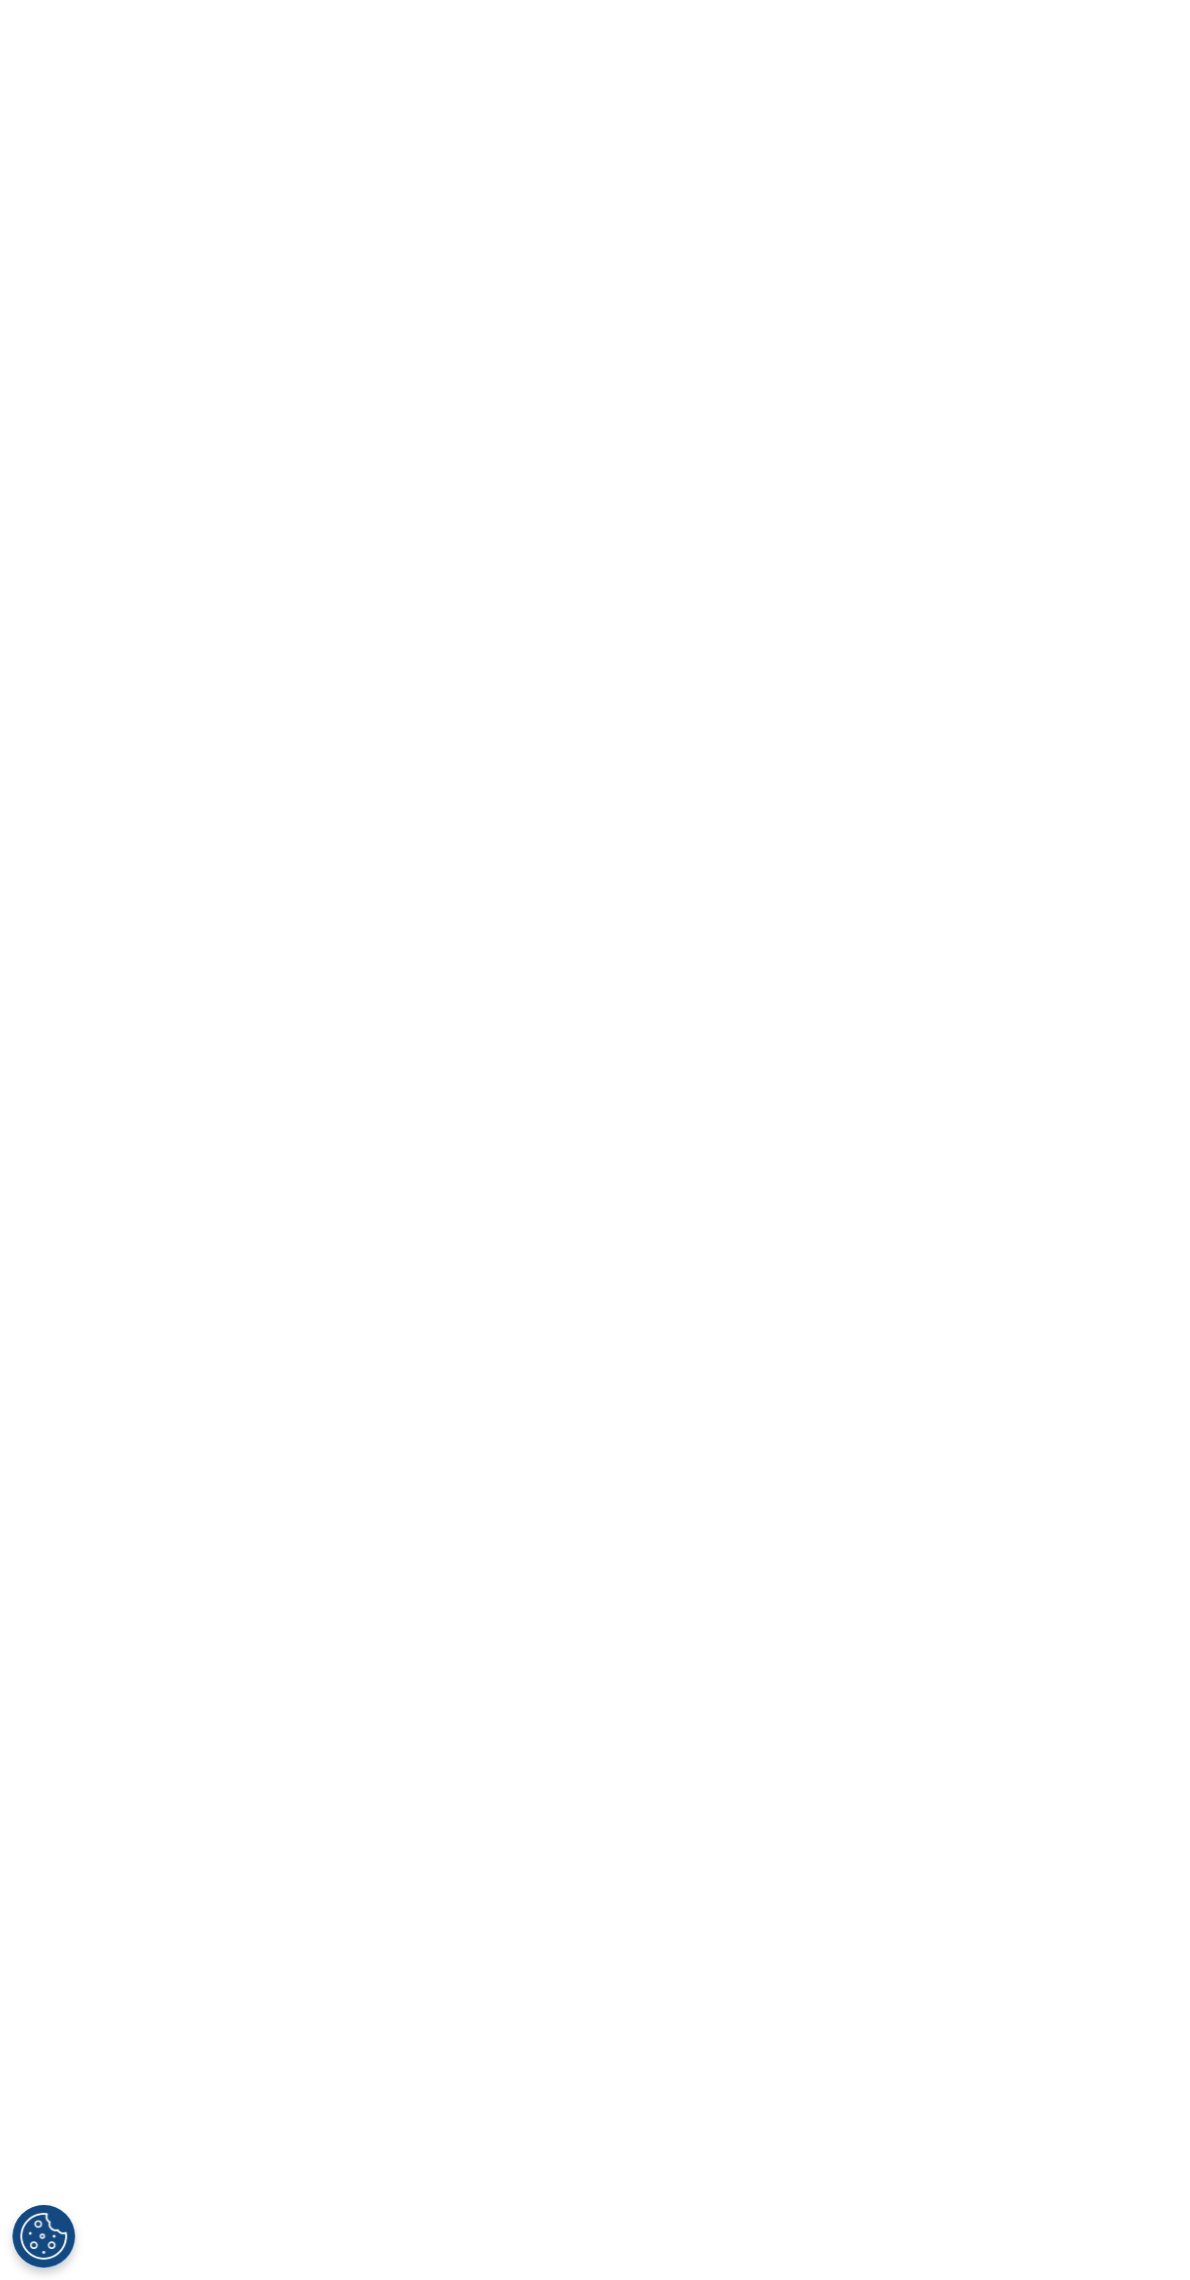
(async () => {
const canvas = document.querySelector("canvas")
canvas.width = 1190
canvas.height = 2280
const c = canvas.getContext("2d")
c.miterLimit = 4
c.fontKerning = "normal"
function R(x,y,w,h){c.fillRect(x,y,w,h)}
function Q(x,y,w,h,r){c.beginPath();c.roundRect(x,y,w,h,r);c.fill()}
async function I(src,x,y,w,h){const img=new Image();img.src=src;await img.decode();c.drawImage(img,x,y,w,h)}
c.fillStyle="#fff"
R(0,0,1190,2280)
c.fillStyle="#00000033"
c.filter="blur(5px)"
c.beginPath()
c.roundRect(13,2210,62,63,31)
c.fill()
c.filter="none"
c.fillStyle="#6aaae4"
Q(13,2205,62,63,31)
await I("1.png",12,2205,64,63)
})()
